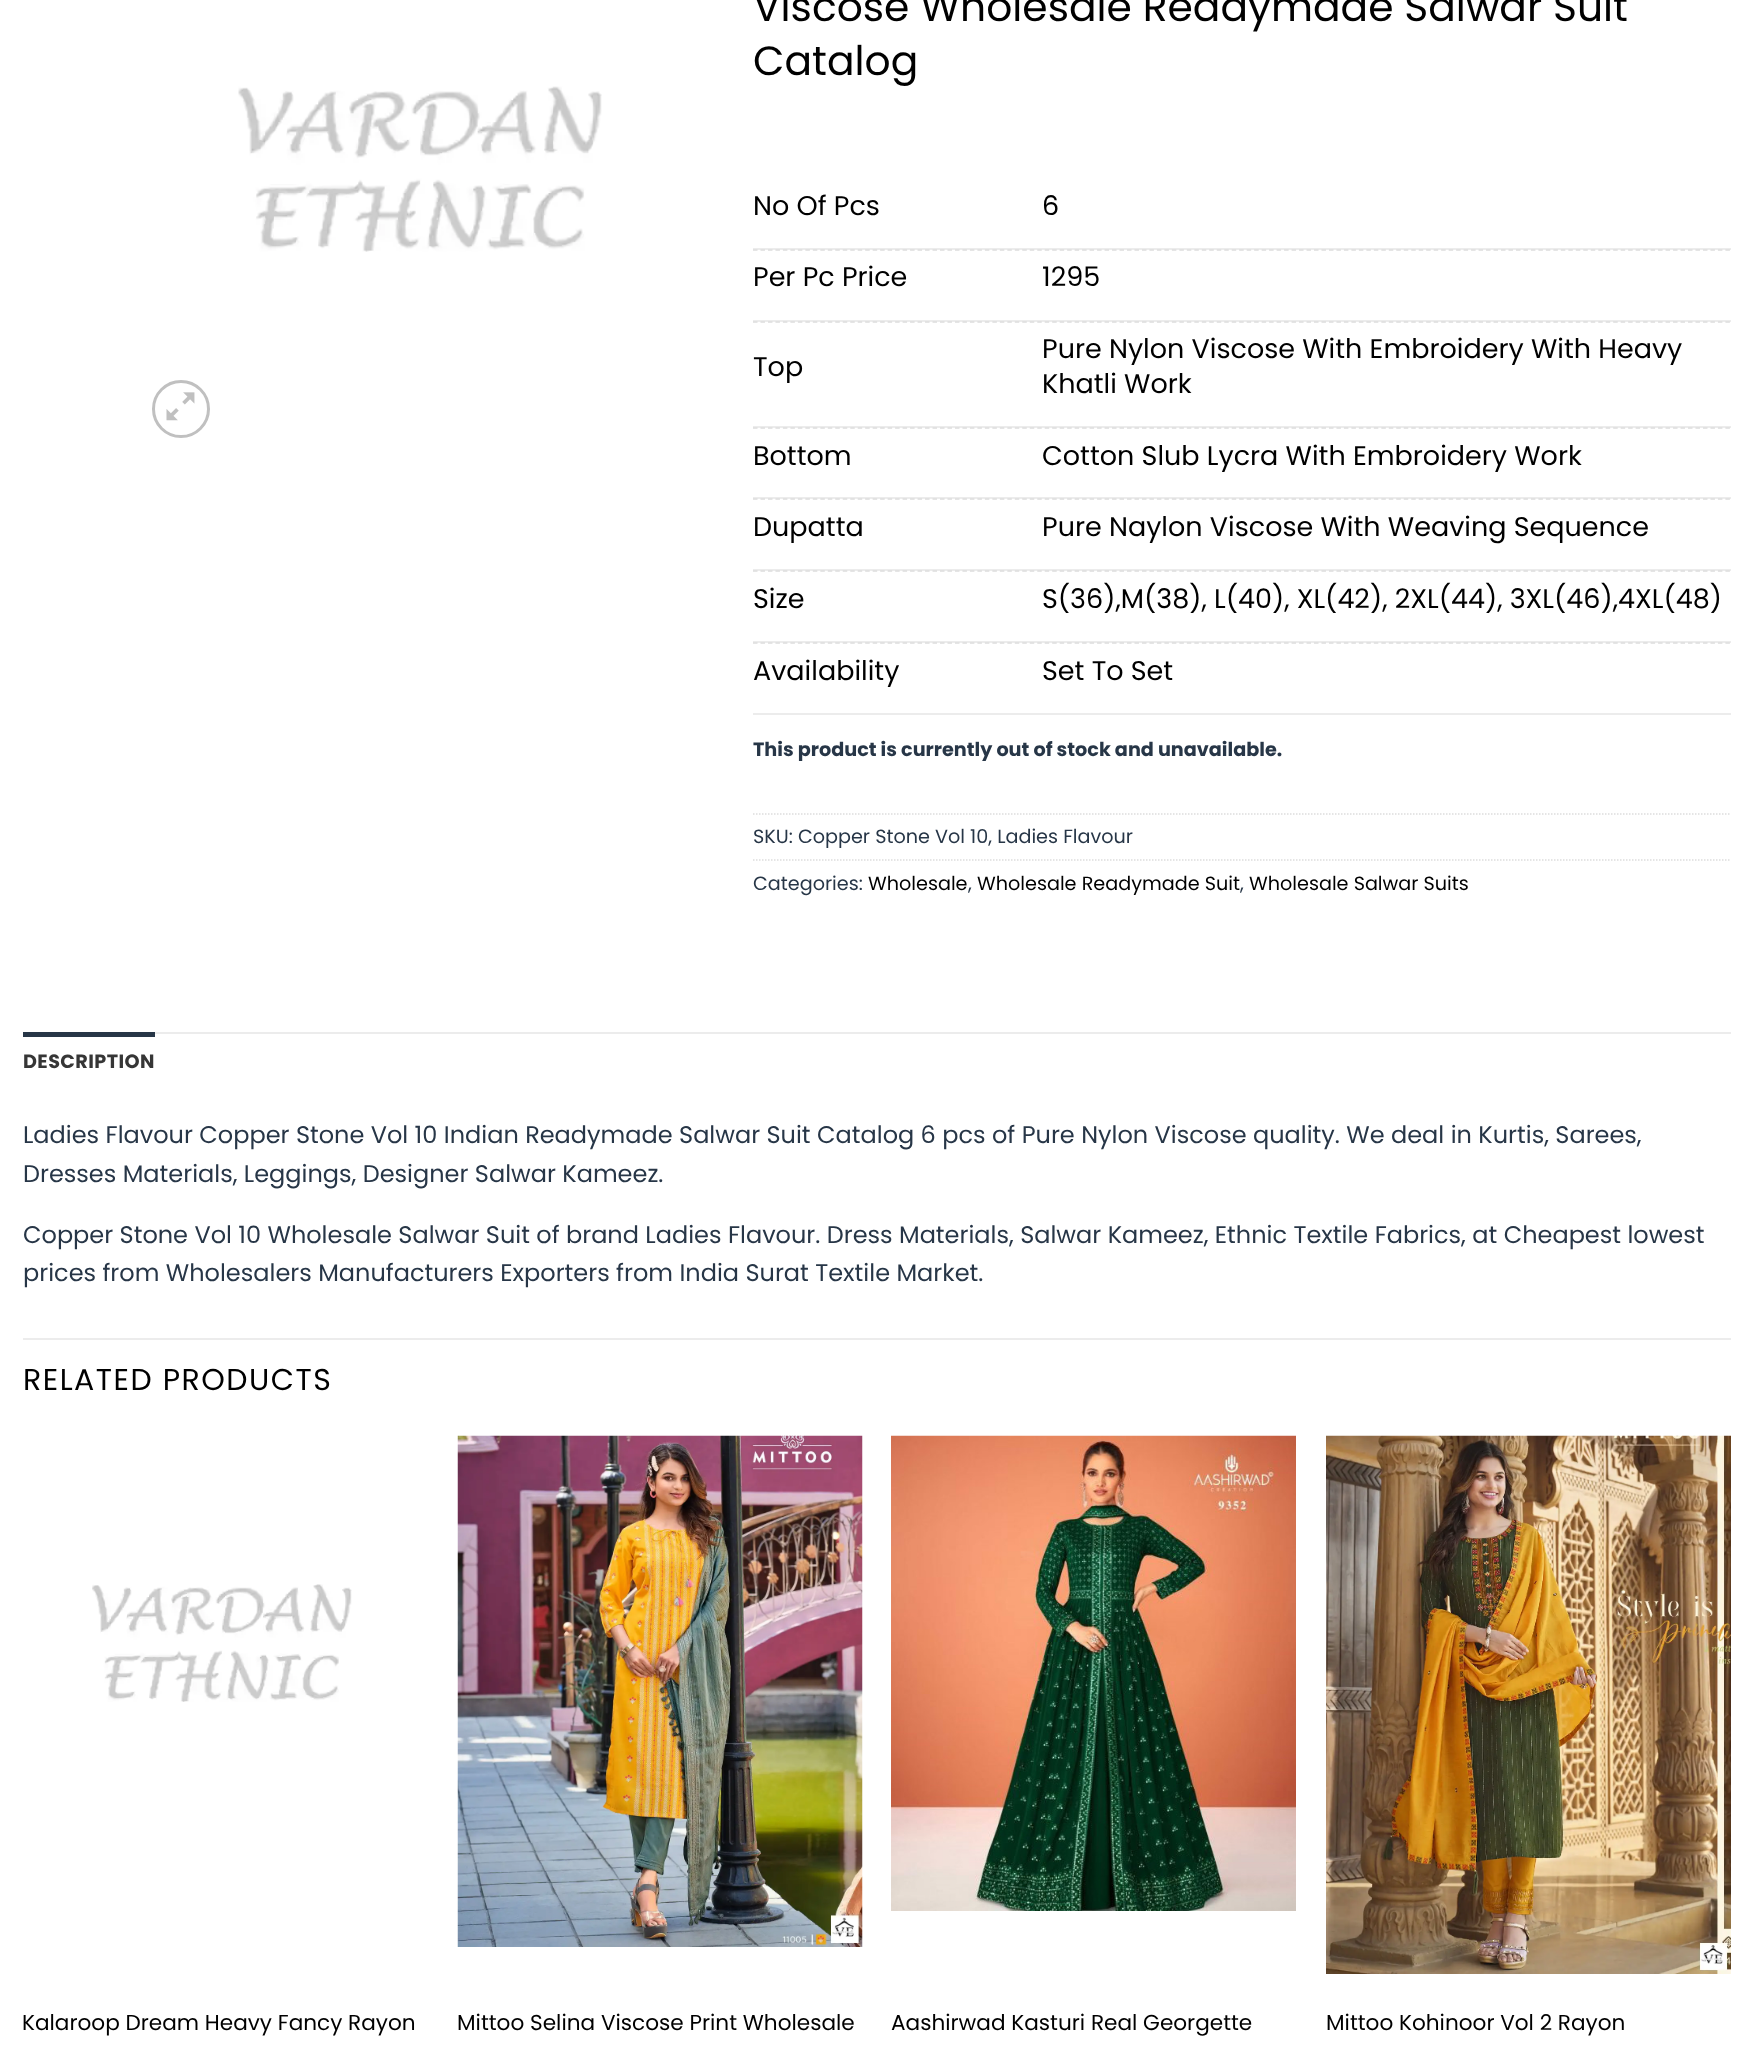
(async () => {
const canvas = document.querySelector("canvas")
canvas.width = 1753
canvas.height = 2053
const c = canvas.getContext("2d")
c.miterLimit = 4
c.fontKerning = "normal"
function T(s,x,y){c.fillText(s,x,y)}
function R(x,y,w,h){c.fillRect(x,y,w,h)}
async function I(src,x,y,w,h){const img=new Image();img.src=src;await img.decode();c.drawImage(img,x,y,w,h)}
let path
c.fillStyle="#fff"
R(0,0,1753,2053)
await I("1.png",238,86,364,166)
c.beginPath()
c.arc(181,409,27.5,0,7)
c.strokeStyle="#c0c0c0"
c.lineWidth=3
c.stroke()
await I("2.png",166,392,29,29)
c.font="40.8px Poppins"
c.fillStyle="#000"
T("Viscose Wholesale Readymade Salwar Suit",753,21)
T("Catalog",753,75)
c.fillStyle="#ececec"
R(753,248,978,2)
c.font="27px Poppins"
c.fillStyle="#000"
T("No Of Pcs",753,215)
T("6",1042,215)
path = new Path2D("M753 250h978")
c.strokeStyle="#ddd"
c.lineWidth=1.5
c.setLineDash([4.5,2.98])
c.stroke(path)
c.fillStyle="#ececec"
R(753,320,978,2)
c.fillStyle="#000"
T("Per Pc Price",753,286)
T("1295",1042,286)
path = new Path2D("M753 322h978")
c.stroke(path)
c.fillStyle="#ececec"
R(753,426,978,2)
c.fillStyle="#000"
T("Top",753,376)
T("Pure Nylon Viscose With Embroidery With Heavy",1042,358)
T("Khatli Work",1042,393)
path = new Path2D("M753 428h978")
c.stroke(path)
c.fillStyle="#ececec"
R(753,497,978,2)
c.fillStyle="#000"
T("Bottom",753,465)
T("Cotton Slub Lycra With Embroidery Work",1042,465)
path = new Path2D("M753 499h978")
c.stroke(path)
c.fillStyle="#ececec"
R(753,569,978,2)
c.fillStyle="#000"
T("Dupatta",753,536)
T("Pure Naylon Viscose With Weaving Sequence",1042,536)
path = new Path2D("M753 571h978")
c.stroke(path)
c.fillStyle="#ececec"
R(753,641,978,2)
c.fillStyle="#000"
T("Size",753,608)
T("S(36),M(38), L(40), XL(42), 2XL(44), 3XL(46),4XL(48)",1042,608)
path = new Path2D("M753 643h978")
c.stroke(path)
c.fillStyle="#ececec"
R(753,713,978,2)
c.fillStyle="#000"
T("Availability",753,680)
T("Set To Set",1042,680)
c.font="bold 19.2px Poppins"
c.fillStyle="#273647"
T("This product is currently out of stock and unavailable.",753,756)
path = new Path2D("M753 814h978")
c.setLineDash([1.5,1.5])
c.stroke(path)
c.font="19.2px Poppins"
T("SKU: Copper Stone Vol 10, Ladies Flavour",753,843)
path = new Path2D("M753 860h978")
c.stroke(path)
T("Categories:",753,890)
c.fillStyle="#000"
T("Wholesale",868,890)
c.fillStyle="#273647"
T(",",968,890)
c.fillStyle="#000"
T("Wholesale Readymade Suit",977,890)
c.fillStyle="#273647"
T(",",1240,890)
c.fillStyle="#000"
T("Wholesale Salwar Suits",1249,890)
c.fillStyle="#ececec"
R(155,1032,1576,2)
c.fillStyle="#273647"
R(23,1032,132,5)
c.letterSpacing="0.4px"
c.font="bold 19.2px Poppins"
c.fillStyle="#363636"
T("DESCRIPTION",23,1068)
c.letterSpacing="0px"
c.font="24px Poppins"
c.fillStyle="#273647"
T("Ladies Flavour Copper Stone Vol 10 Indian Readymade Salwar Suit Catalog 6 pcs of Pure Nylon Viscose quality. We deal in Kurtis, Sarees,",23,1143)
T("Dresses Materials, Leggings, Designer Salwar Kameez.",23,1182)
T("Copper Stone Vol 10 Wholesale Salwar Suit of brand Ladies Flavour. Dress Materials, Salwar Kameez, Ethnic Textile Fabrics, at Cheapest lowest",23,1243)
T("prices from Wholesalers Manufacturers Exporters from India Surat Textile Market.",23,1281)
c.fillStyle="#ececec"
R(23,1338,1708,2)
c.letterSpacing="1.5px"
c.font="30px Poppins"
c.fillStyle="#000"
T("RELATED PRODUCTS",23,1390)
await I("3.png",92,1584,260,118)
c.letterSpacing="0px"
c.font="21.6px Poppins"
T("Kalaroop Dream Heavy Fancy Rayon",22,2030)
await I("4.png",457,1435,406,512)
T("Mittoo Selina Viscose Print Wholesale",457,2030)
await I("5.png",891,1435,405,476)
T("Aashirwad Kasturi Real Georgette",891,2030)
await I("6.png",1326,1435,405,539)
T("Mittoo Kohinoor Vol 2 Rayon",1326,2030)
})()
